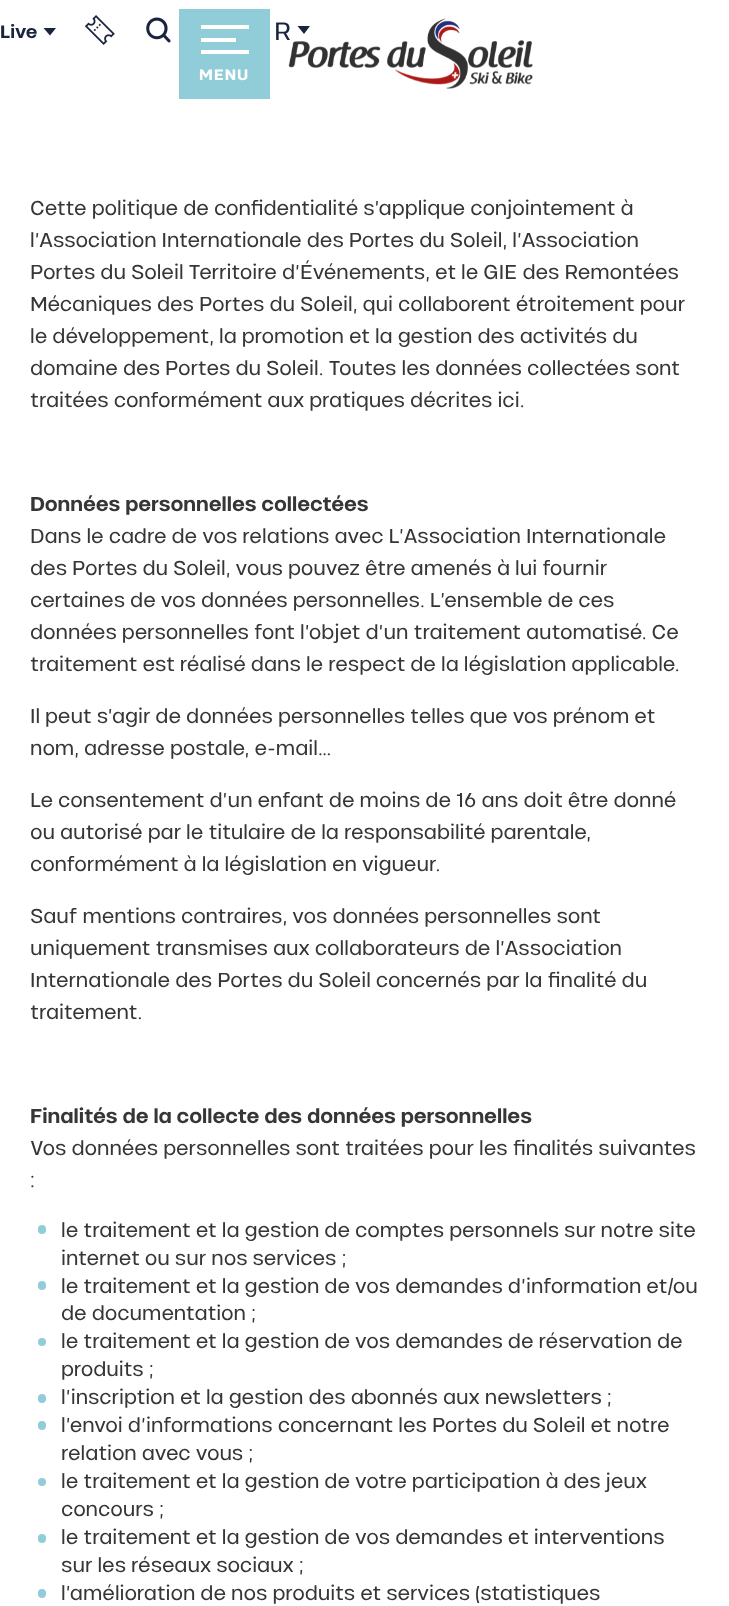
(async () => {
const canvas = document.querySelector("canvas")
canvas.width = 729
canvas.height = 1606
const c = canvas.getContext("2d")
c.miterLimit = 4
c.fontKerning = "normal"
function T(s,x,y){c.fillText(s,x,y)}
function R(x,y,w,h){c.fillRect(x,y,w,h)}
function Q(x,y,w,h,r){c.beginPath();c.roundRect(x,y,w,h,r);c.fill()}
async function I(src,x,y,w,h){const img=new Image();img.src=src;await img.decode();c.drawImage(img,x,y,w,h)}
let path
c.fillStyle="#fff"
R(0,0,729,1606)
c.font="600 18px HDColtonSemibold"
c.fillStyle="#1a253d"
T("Live",0,38)
path = new Path2D("M43.5 28h12.5l-6 7.5z")
c.fill(path)
await I("1.png",84,15,31,30)
await I("2.png",146,17,25,26)
c.font="25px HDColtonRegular"
T("R",274,40)
path = new Path2D("M297.5 26h12.5l-6 8z")
c.fill(path)
c.fillStyle="#91cdd8"
R(179,9,91,90)
c.fillStyle="#fff"
R(201,25,48,4)
R(201,38,35,4)
R(201,50,48,4)
c.letterSpacing="1px"
c.font="600 15px HDColtonSemibold"
T("MENU",199,80)
await I("3.png",288,18,245,71)
c.letterSpacing="0px"
c.font="20px HDColtonRegular"
c.fillStyle="#363636"
T("Cette politique de confidentialité s’applique conjointement à",30,215)
T("l’Association Internationale des Portes du Soleil, l’Association",30,247)
T("Portes du Soleil Territoire d’Événements, et le GIE des Remontées",30,279)
T("Mécaniques des Portes du Soleil, qui collaborent étroitement pour",30,311)
T("le développement, la promotion et la gestion des activités du",30,343)
T("domaine des Portes du Soleil. Toutes les données collectées sont",30,375)
T("traitées conformément aux pratiques décrites ici.",30,407)
c.font="600 20px HDColtonSemibold"
T("Données personnelles collectées",30,511)
c.font="20px HDColtonRegular"
T("Dans le cadre de vos relations avec L’Association Internationale",30,543)
T("des Portes du Soleil, vous pouvez être amenés à lui fournir",30,575)
T("certaines de vos données personnelles. L’ensemble de ces",30,607)
T("données personnelles font l’objet d’un traitement automatisé. Ce",30,639)
T("traitement est réalisé dans le respect de la législation applicable.",30,671)
T("Il peut s’agir de données personnelles telles que vos prénom et",30,723)
T("nom, adresse postale, e-mail…",30,755)
T("Le consentement d’un enfant de moins de 16 ans doit être donné",30,807)
T("ou autorisé par le titulaire de la responsabilité parentale,",30,839)
T("conformément à la législation en vigueur.",30,871)
T("Sauf mentions contraires, vos données personnelles sont",30,923)
T("uniquement transmises aux collaborateurs de l’Association",30,955)
T("Internationale des Portes du Soleil concernés par la finalité du",30,987)
T("traitement.",30,1019)
c.font="600 20px HDColtonSemibold"
T("Finalités de la collecte des données personnelles",30,1123)
c.font="20px HDColtonRegular"
T("Vos données personnelles sont traitées pour les finalités suivantes",30,1155)
T(":",30,1187)
c.fillStyle="#91cdd8"
Q(38,1225,8,9,4)
c.fillStyle="#363636"
T("le traitement et la gestion de comptes personnels sur notre site",61,1237)
T("internet ou sur nos services ;",61,1265)
c.fillStyle="#91cdd8"
Q(38,1281,8,9,4)
c.fillStyle="#363636"
T("le traitement et la gestion de vos demandes d’information et/ou",61,1293)
T("de documentation ;",61,1320)
c.fillStyle="#91cdd8"
c.beginPath()
c.arc(42,1342,4,0,7)
c.fill()
c.fillStyle="#363636"
T("le traitement et la gestion de vos demandes de réservation de",61,1348)
T("produits ;",61,1376)
c.fillStyle="#91cdd8"
Q(38,1394,8,9,4)
c.fillStyle="#363636"
T("l’inscription et la gestion des abonnés aux newsletters ;",61,1404)
c.fillStyle="#91cdd8"
Q(38,1421,8,9,4)
c.fillStyle="#363636"
T("l’envoi d’informations concernant les Portes du Soleil et notre",61,1432)
T("relation avec vous ;",61,1460)
c.fillStyle="#91cdd8"
c.beginPath()
c.arc(42,1482,4,0,7)
c.fill()
c.fillStyle="#363636"
T("le traitement et la gestion de votre participation à des jeux",61,1488)
T("concours ;",61,1516)
c.fillStyle="#91cdd8"
Q(38,1534,8,9,4)
c.fillStyle="#363636"
T("le traitement et la gestion de vos demandes et interventions",61,1544)
T("sur les réseaux sociaux ;",61,1572)
c.fillStyle="#91cdd8"
Q(38,1589,8,9,4)
c.fillStyle="#363636"
T("l’amélioration de nos produits et services (statistiques",61,1600)
})()
